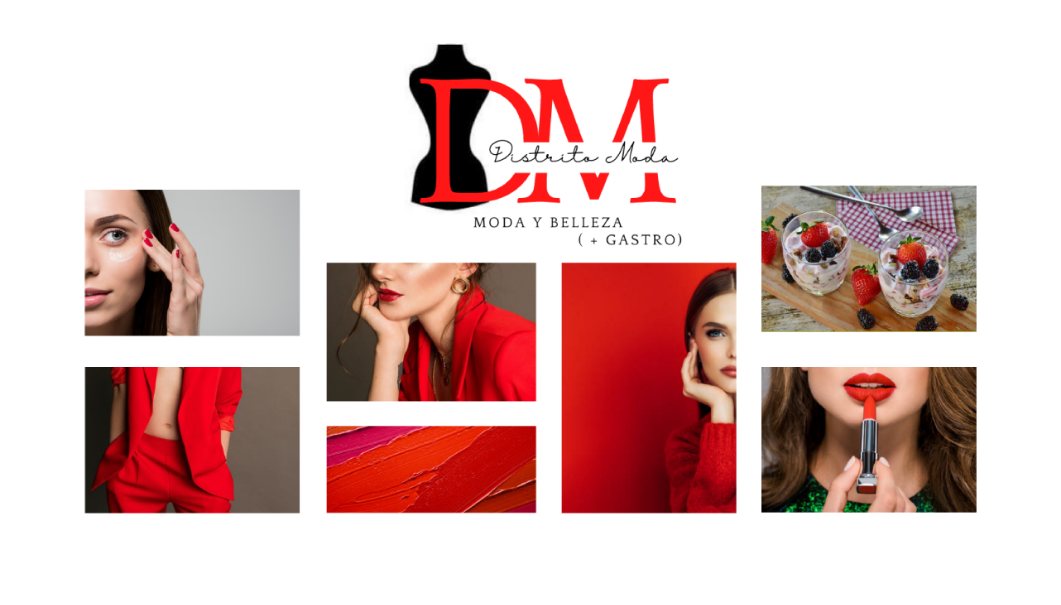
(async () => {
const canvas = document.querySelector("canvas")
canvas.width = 1061
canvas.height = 605
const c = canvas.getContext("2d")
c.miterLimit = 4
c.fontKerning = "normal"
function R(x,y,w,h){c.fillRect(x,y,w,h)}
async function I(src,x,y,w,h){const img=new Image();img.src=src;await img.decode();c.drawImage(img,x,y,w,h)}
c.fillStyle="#fff"
R(0,0,1061,605)
await I("1.png",84,43,893,471)
})()
